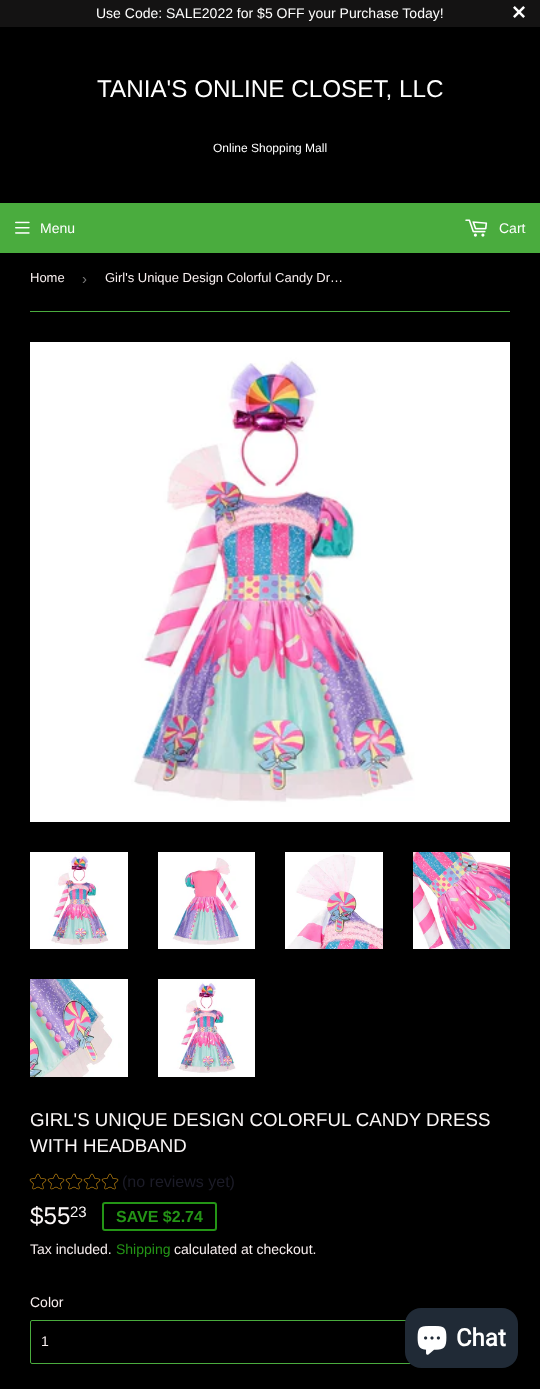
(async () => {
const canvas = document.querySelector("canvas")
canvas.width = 540
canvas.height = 1389
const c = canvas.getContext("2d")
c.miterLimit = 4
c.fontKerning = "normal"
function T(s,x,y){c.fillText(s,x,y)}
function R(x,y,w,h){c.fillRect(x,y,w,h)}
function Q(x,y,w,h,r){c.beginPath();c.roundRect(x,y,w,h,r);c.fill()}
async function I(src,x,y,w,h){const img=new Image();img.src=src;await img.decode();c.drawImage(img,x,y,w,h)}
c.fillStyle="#000"
R(0,0,540,1389)
c.fillStyle="#141313"
R(0,0,540,27)
c.font="14px Liberation Sans"
c.fillStyle="#fff"
T("Use Code: SALE2022 for $5 OFF your Purchase Today!",96,18)
await I("1.png",513,6,12,12)
c.font="24.25px Arimo"
T("TANIA'S ONLINE CLOSET, LLC",97,97)
c.font="12px Arimo"
T("Online Shopping Mall",213,152)
c.fillStyle="#4aac3e"
R(0,203,540,50)
await I("2.png",15,221,15,13)
c.font="14px Arimo"
c.fillStyle="#fff"
T("Menu",40,233)
await I("3.png",465,219,23,18)
T("Cart",499,233)
c.fillStyle="#4aac3e"
R(30,311,480,1)
c.font="13px Arimo"
c.fillStyle="#f8efef"
T("Home",30,282)
c.font="15px Liberation Sans"
c.fillStyle="#767676"
T("›",82,284)
c.font="13px Arimo"
c.fillStyle="#f8efef"
T("Girl's Unique Design Colorful Candy Dr…",105,282)
await I("4.png",30,342,480,480)
await I("5.png",30,852,98,97)
await I("6.png",158,852,97,97)
await I("7.png",285,852,98,97)
await I("8.png",413,852,97,97)
await I("9.png",30,979,98,98)
await I("10.png",158,979,97,98)
c.font="18.7px Arimo"
c.fillStyle="#faf6f6"
T("GIRL'S UNIQUE DESIGN COLORFUL CANDY DRESS",30,1126)
T("WITH HEADBAND",30,1152)
await I("11.png",29,1173,18,17)
await I("11.png",47,1173,18,17)
await I("11.png",65,1173,18,17)
await I("11.png",83,1173,18,17)
await I("11.png",101,1173,18,17)
c.font="16px Arimo"
c.fillStyle="#1c1c28"
T("(no reviews yet)",122,1187)
c.font="24.25px Arimo"
c.fillStyle="#faf6f6"
T("$55",30,1224)
c.font="15px Arimo"
T("23",70,1217)
c.beginPath()
c.roundRect(103,1203,113,27,2)
c.strokeStyle="#249516"
c.lineWidth=2
c.stroke()
c.font="bold 16px Arimo"
c.fillStyle="#249516"
T("SAVE $2.74",116,1222)
c.font="14px Arimo"
c.fillStyle="#f8efef"
T("Tax included.",30,1254)
c.fillStyle="#249516"
T("Shipping",116,1254)
c.fillStyle="#f8efef"
T("calculated at checkout.",174,1254)
T("Color",30,1307)
c.beginPath()
c.roundRect(30.5,1320.5,479,43,1.5)
c.strokeStyle="#4aac3e"
c.lineWidth=1
c.stroke()
T("1",41,1346)
c.fillStyle="#00000026"
c.filter="blur(2.5px)"
c.beginPath()
c.roundRect(405,1308,113,60,16)
c.fill()
c.filter="none"
c.fillStyle="#202a36"
Q(405,1308,113,60,16)
await I("12.png",417,1326,30,29)
c.font="bold 24px Roboto"
c.fillStyle="#fff"
T("Chat",456,1346)
})()
